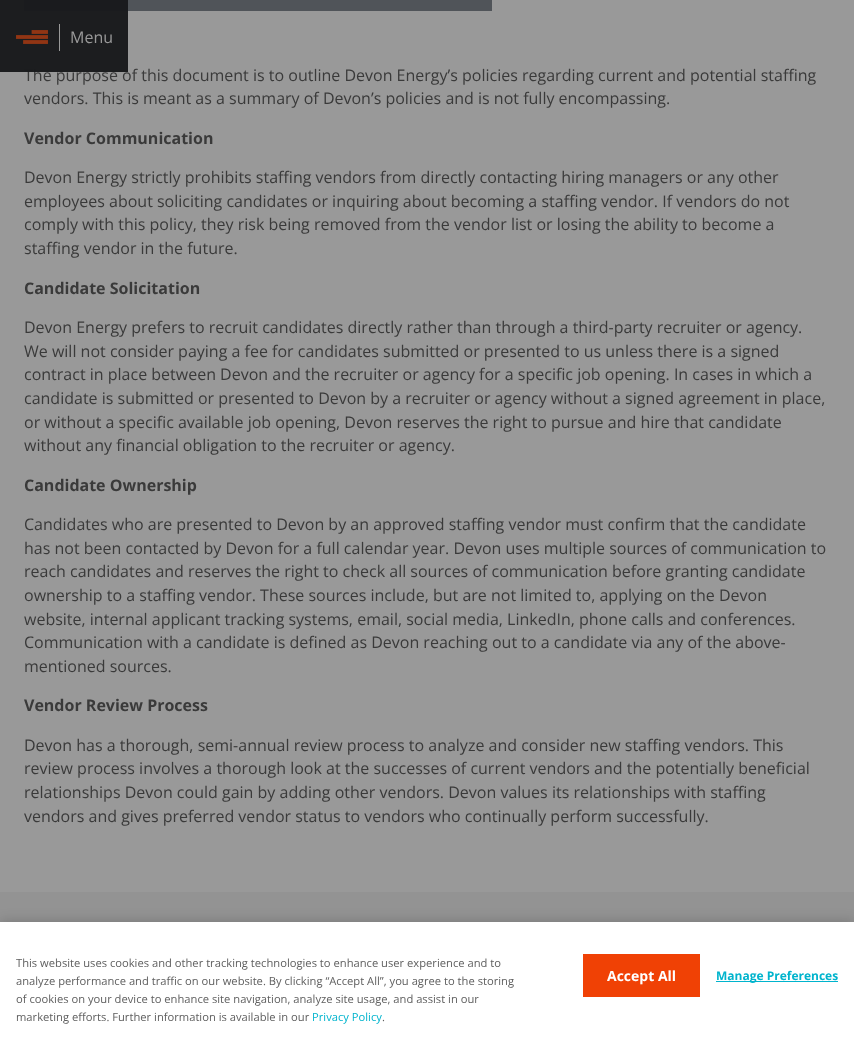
(async () => {
const canvas = document.querySelector("canvas")
canvas.width = 854
canvas.height = 1058
const c = canvas.getContext("2d")
c.miterLimit = 4
c.fontKerning = "normal"
function T(s,x,y){c.fillText(s,x,y)}
function R(x,y,w,h){c.fillRect(x,y,w,h)}
async function I(src,x,y,w,h){const img=new Image();img.src=src;await img.decode();c.drawImage(img,x,y,w,h)}
c.fillStyle="#999"
R(0,0,854,1058)
c.fillStyle="#505459"
R(24,0,468,11)
c.font="16px Open Sans"
c.fillStyle="#3a3a3a"
T("The purpose of this document is to outline Devon Energy’s policies regarding current and potential staffing",24,81)
c.fillStyle="#191b1dfa"
R(0,0,128,72)
await I("1.png",16,30,32,14)
c.fillStyle="#999"
R(59,24,1,27)
T("Menu",70,43)
c.fillStyle="#3a3a3a"
T("vendors. This is meant as a summary of Devon’s policies and is not fully encompassing.",24,104)
c.font="bold 16px Open Sans"
T("Vendor Communication",24,144)
c.font="16px Open Sans"
T("Devon Energy strictly prohibits staffing vendors from directly contacting hiring managers or any other",24,183)
T("employees about soliciting candidates or inquiring about becoming a staffing vendor. If vendors do not",24,207)
T("comply with this policy, they risk being removed from the vendor list or losing the ability to become a",24,230)
T("staffing vendor in the future.",24,254)
c.font="bold 16px Open Sans"
T("Candidate Solicitation",24,294)
c.font="16px Open Sans"
T("Devon Energy prefers to recruit candidates directly rather than through a third-party recruiter or agency.",24,333)
T("We will not consider paying a fee for candidates submitted or presented to us unless there is a signed",24,357)
T("contract in place between Devon and the recruiter or agency for a specific job opening. In cases in which a",24,380)
T("candidate is submitted or presented to Devon by a recruiter or agency without a signed agreement in place,",24,404)
T("or without a specific available job opening, Devon reserves the right to pursue and hire that candidate",24,428)
T("without any financial obligation to the recruiter or agency.",24,451)
c.font="bold 16px Open Sans"
T("Candidate Ownership",24,491)
c.font="16px Open Sans"
T("Candidates who are presented to Devon by an approved staffing vendor must confirm that the candidate",24,530)
T("has not been contacted by Devon for a full calendar year. Devon uses multiple sources of communication to",24,554)
T("reach candidates and reserves the right to check all sources of communication before granting candidate",24,577)
T("ownership to a staffing vendor. These sources include, but are not limited to, applying on the Devon",24,601)
T("website, internal applicant tracking systems, email, social media, LinkedIn, phone calls and conferences.",24,625)
T("Communication with a candidate is defined as Devon reaching out to a candidate via any of the above-",24,648)
T("mentioned sources.",24,672)
c.font="bold 16px Open Sans"
T("Vendor Review Process",24,711)
c.font="16px Open Sans"
T("Devon has a thorough, semi-annual review process to analyze and consider new staffing vendors. This",24,751)
T("review process involves a thorough look at the successes of current vendors and the potentially beneficial",24,774)
T("relationships Devon could gain by adding other vendors. Devon values its relationships with staffing",24,798)
T("vendors and gives preferred vendor status to vendors who continually perform successfully.",24,822)
c.fillStyle="#939393"
R(0,892,854,30)
c.fillStyle="#00000026"
c.filter="blur(6px)"
c.beginPath()
c.rect(0,920,854,136)
c.fill()
c.filter="none"
c.fillStyle="#fff"
R(0,922,854,136)
c.font="11.2px Open Sans"
c.fillStyle="#606060"
T("This website uses cookies and other tracking technologies to enhance user experience and to",16,967)
T("analyze performance and traffic on our website. By clicking “Accept All”, you agree to the storing",16,985)
T("of cookies on your device to enhance site navigation, analyze site usage, and assist in our",16,1003)
T("marketing efforts. Further information is available in our",16,1021)
c.fillStyle="#00b4cd"
T("Privacy Policy",312,1021)
c.fillStyle="#606060"
T(".",382,1021)
c.fillStyle="#f04105"
R(583,954,117,43)
c.font="bold 14px Open Sans"
c.fillStyle="#fff"
T("Accept All",607,981)
c.fillStyle="#00b4cd"
R(716,981,122,1)
c.font="bold 12px Open Sans"
T("Manage Preferences",716,980)
})()
